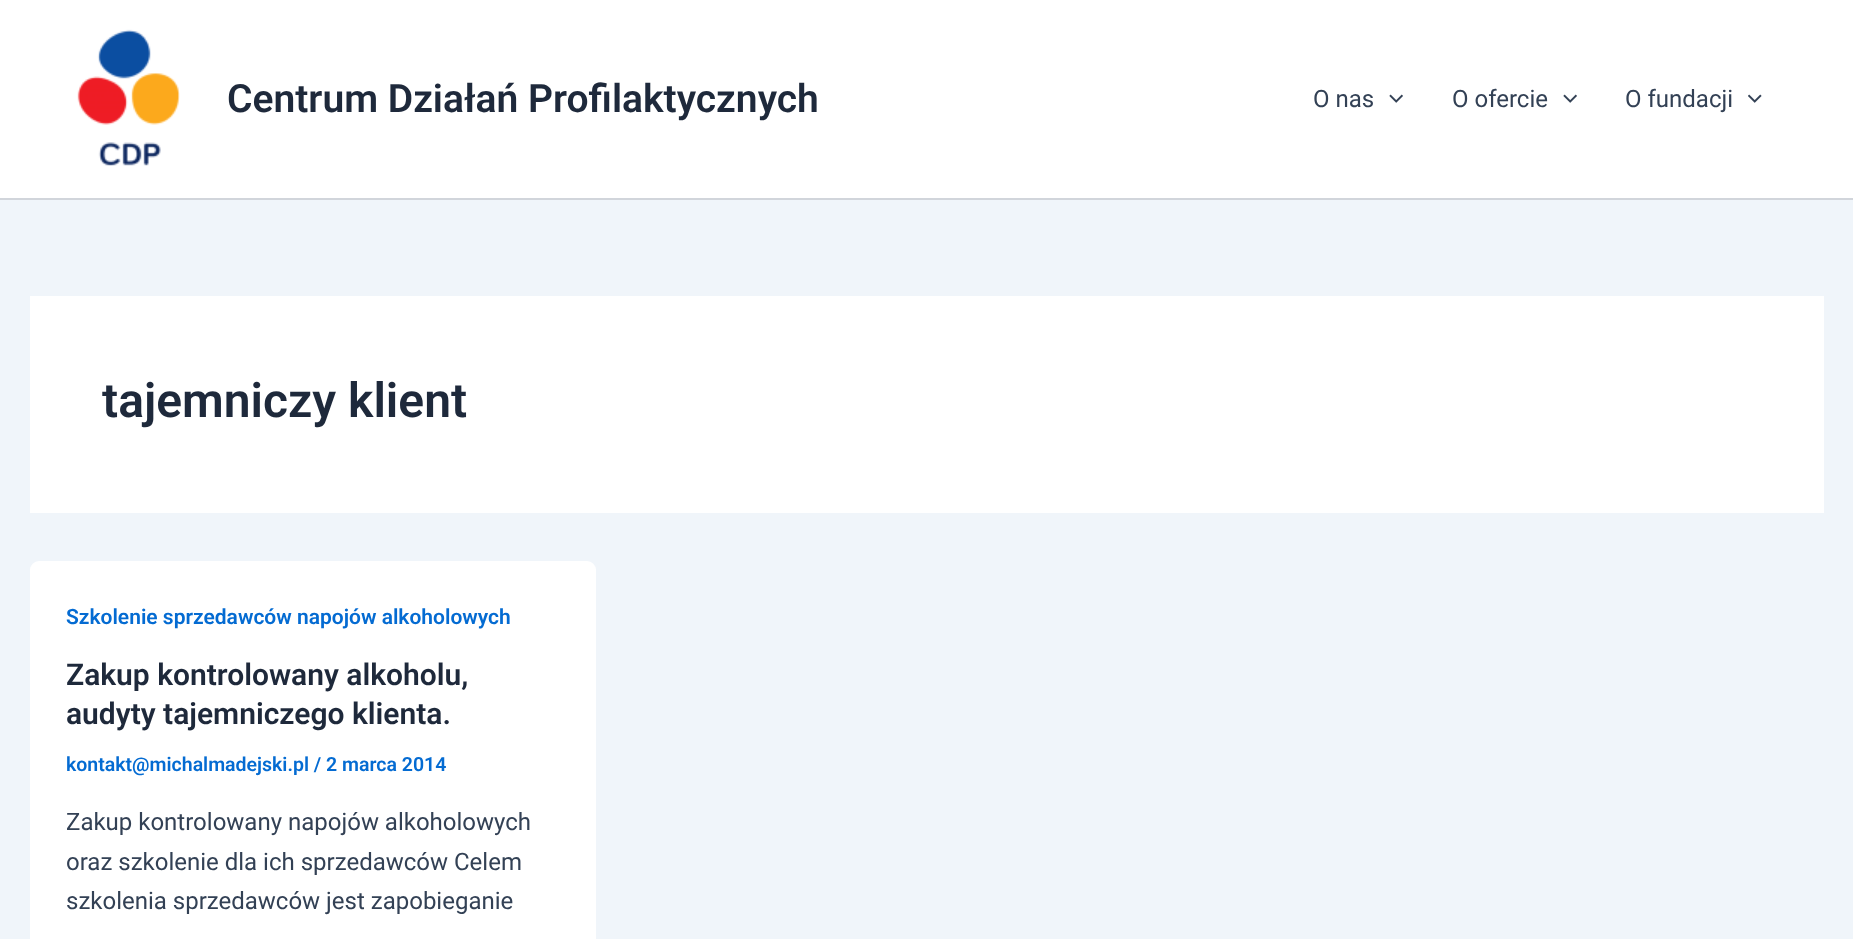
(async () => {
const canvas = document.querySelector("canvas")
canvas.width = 1853
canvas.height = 939
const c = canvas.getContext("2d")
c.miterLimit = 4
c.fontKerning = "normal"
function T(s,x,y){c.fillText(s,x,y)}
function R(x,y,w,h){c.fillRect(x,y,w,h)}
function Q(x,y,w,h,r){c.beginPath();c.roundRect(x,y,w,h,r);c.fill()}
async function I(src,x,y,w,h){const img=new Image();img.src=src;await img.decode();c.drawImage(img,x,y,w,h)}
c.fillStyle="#f0f5fa"
R(0,0,1853,939)
c.fillStyle="#fff"
R(0,0,1853,198)
c.fillStyle="#d1d5db"
R(0,198,1853,2)
await I("1.png",77,29,103,137)
c.font="600 39px Roboto"
c.fillStyle="#1e293b"
T("Centrum Działań Profilaktycznych",227,112)
c.font="24px Roboto"
c.fillStyle="#334155"
T("O nas",1313,107)
await I("2.png",1389,94,14,9)
T("O ofercie",1452,107)
await I("2.png",1563,94,14,9)
T("O fundacji",1625,107)
await I("3.png",1748,94,14,9)
c.fillStyle="#fff"
R(30,296,1794,217)
c.font="600 48px Roboto"
c.fillStyle="#1e293b"
T("tajemniczy klient",102,417)
c.fillStyle="#fff"
Q(30,561,566,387,9)
c.font="600 21px Roboto"
c.fillStyle="#046bd2"
T("Szkolenie sprzedawców napojów alkoholowych",66,624)
c.font="600 30px Roboto"
c.fillStyle="#1e293b"
T("Zakup kontrolowany alkoholu,",66,685)
T("audyty tajemniczego klienta.",66,724)
c.font="600 19.5px Roboto"
c.fillStyle="#046bd2"
T("kontakt@michalmadejski.pl / 2 marca 2014",66,771)
c.font="24px Roboto"
c.fillStyle="#334155"
T("Zakup kontrolowany napojów alkoholowych",66,830)
T("oraz szkolenie dla ich sprzedawców Celem",66,870)
T("szkolenia sprzedawców jest zapobieganie",66,909)
})()
